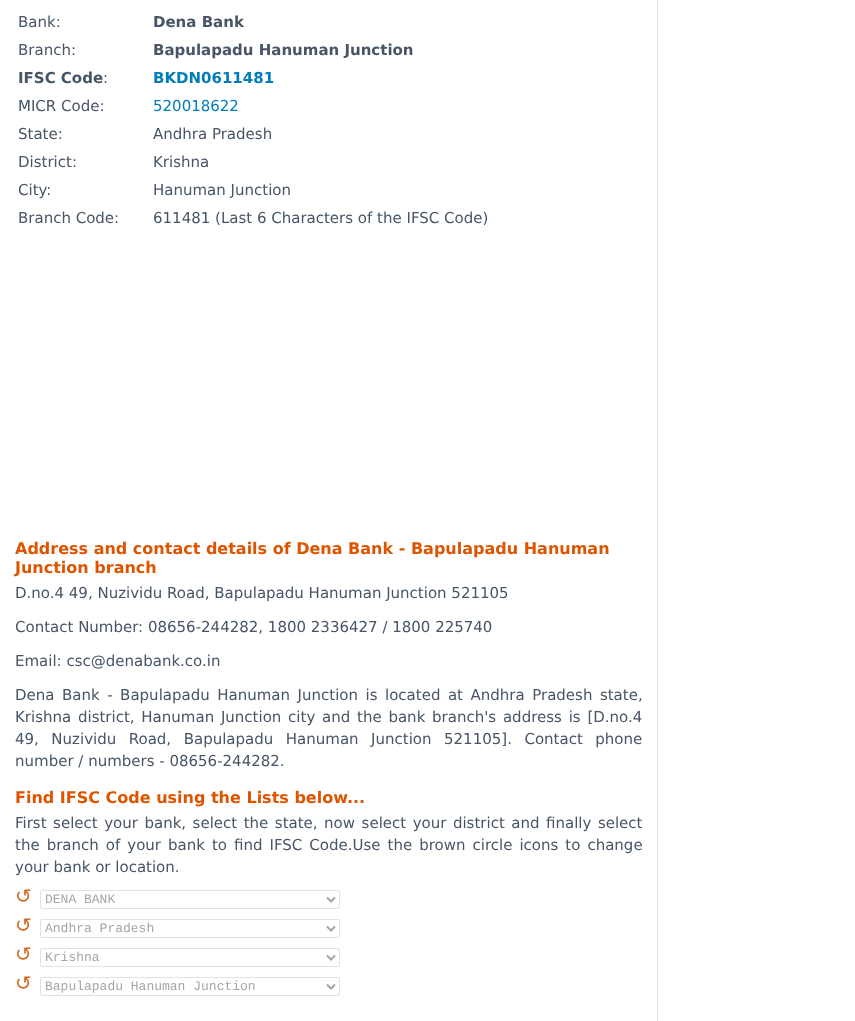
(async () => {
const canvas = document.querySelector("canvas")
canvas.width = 855
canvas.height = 1021
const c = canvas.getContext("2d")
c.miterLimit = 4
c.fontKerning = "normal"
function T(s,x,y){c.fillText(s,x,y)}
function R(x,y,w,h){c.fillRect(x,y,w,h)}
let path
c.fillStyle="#fff"
R(0,0,855,1021)
c.fillStyle="#ddd"
R(657,0,1,1021)
c.font="15px DejaVu Sans"
c.fillStyle="#475566"
T("Bank:",18,27)
c.font="bold 15px DejaVu Sans"
T("Dena Bank",153,27)
c.font="15px DejaVu Sans"
T("Branch:",18,55)
c.font="bold 15px DejaVu Sans"
T("Bapulapadu Hanuman Junction",153,55)
T("IFSC Code",18,83)
c.font="15px DejaVu Sans"
T(":",103,83)
c.font="bold 15px DejaVu Sans"
c.fillStyle="#007dba"
T("BKDN0611481",153,83)
c.font="15px DejaVu Sans"
c.fillStyle="#475566"
T("MICR Code:",18,111)
c.fillStyle="#007dba"
T("520018622",153,111)
c.fillStyle="#475566"
T("State:",18,139)
T("Andhra Pradesh",153,139)
T("District:",18,167)
T("Krishna",153,167)
T("City:",18,195)
T("Hanuman Junction",153,195)
T("Branch Code:",18,223)
T("611481 (Last 6 Characters of the IFSC Code)",153,223)
c.font="bold 16px DejaVu Sans"
c.fillStyle="#d50"
T("Address and contact details of Dena Bank - Bapulapadu Hanuman",15,554)
T("Junction branch",15,573)
c.font="15px DejaVu Sans"
c.fillStyle="#475566"
T("D.no.4 49, Nuzividu Road, Bapulapadu Hanuman Junction 521105",15,598)
T("Contact Number: 08656-244282, 1800 2336427 / 1800 225740",15,632)
T("Email: csc@denabank.co.in",15,666)
c.wordSpacing="2.75px"
T("Dena Bank - Bapulapadu Hanuman Junction is located at Andhra Pradesh state,",15,700)
c.wordSpacing="2px"
T("Krishna district, Hanuman Junction city and the bank branch's address is [D.no.4",15,722)
c.wordSpacing="7.75px"
T("49, Nuzividu Road, Bapulapadu Hanuman Junction 521105]. Contact phone",15,744)
c.wordSpacing="0px"
T("number / numbers - 08656-244282.",15,766)
c.font="bold 16px DejaVu Sans"
c.fillStyle="#d50"
T("Find IFSC Code using the Lists below...",15,803)
c.wordSpacing="1.75px"
c.font="15px DejaVu Sans"
c.fillStyle="#475566"
T("First select your bank, select the state, now select your district and finally select",15,828)
c.wordSpacing="2.25px"
T("the branch of your bank to find IFSC Code.Use the brown circle icons to change",15,850)
c.wordSpacing="0px"
T("your bank or location.",15,872)
c.font="20px DejaVu Sans"
c.fillStyle="#d2691e"
T("↺",15,903)
c.beginPath()
c.roundRect(40.5,890.5,299,18,1.5)
c.strokeStyle="#e2e2e2"
c.stroke()
path = new Path2D("M327 897.5l4 4l4-4")
c.strokeStyle="#a6a6a6"
c.lineWidth=2
c.stroke(path)
c.font="13px Liberation Mono"
c.fillStyle="#a6a6a6"
T("DENA BANK",45,903)
c.font="20px DejaVu Sans"
c.fillStyle="#d2691e"
T("↺",15,932)
c.beginPath()
c.roundRect(40.5,919.5,299,18,1.5)
c.strokeStyle="#e2e2e2"
c.lineWidth=1
c.stroke()
path = new Path2D("M327 926.5l4 4l4-4")
c.strokeStyle="#a6a6a6"
c.lineWidth=2
c.stroke(path)
c.font="13px Liberation Mono"
c.fillStyle="#a6a6a6"
T("Andhra Pradesh",45,932)
c.font="20px DejaVu Sans"
c.fillStyle="#d2691e"
T("↺",15,961)
c.beginPath()
c.roundRect(40.5,948.5,299,18,1.5)
c.strokeStyle="#e2e2e2"
c.lineWidth=1
c.stroke()
path = new Path2D("M327 955.5l4 4l4-4")
c.strokeStyle="#a6a6a6"
c.lineWidth=2
c.stroke(path)
c.font="13px Liberation Mono"
c.fillStyle="#a6a6a6"
T("Krishna",45,961)
c.font="20px DejaVu Sans"
c.fillStyle="#d2691e"
T("↺",15,990)
c.beginPath()
c.roundRect(40.5,977.5,299,18,1.5)
c.strokeStyle="#e2e2e2"
c.lineWidth=1
c.stroke()
path = new Path2D("M327 984.5l4 4l4-4")
c.strokeStyle="#a6a6a6"
c.lineWidth=2
c.stroke(path)
c.font="13px Liberation Mono"
c.fillStyle="#a6a6a6"
T("Bapulapadu Hanuman Junction",45,990)
})()
